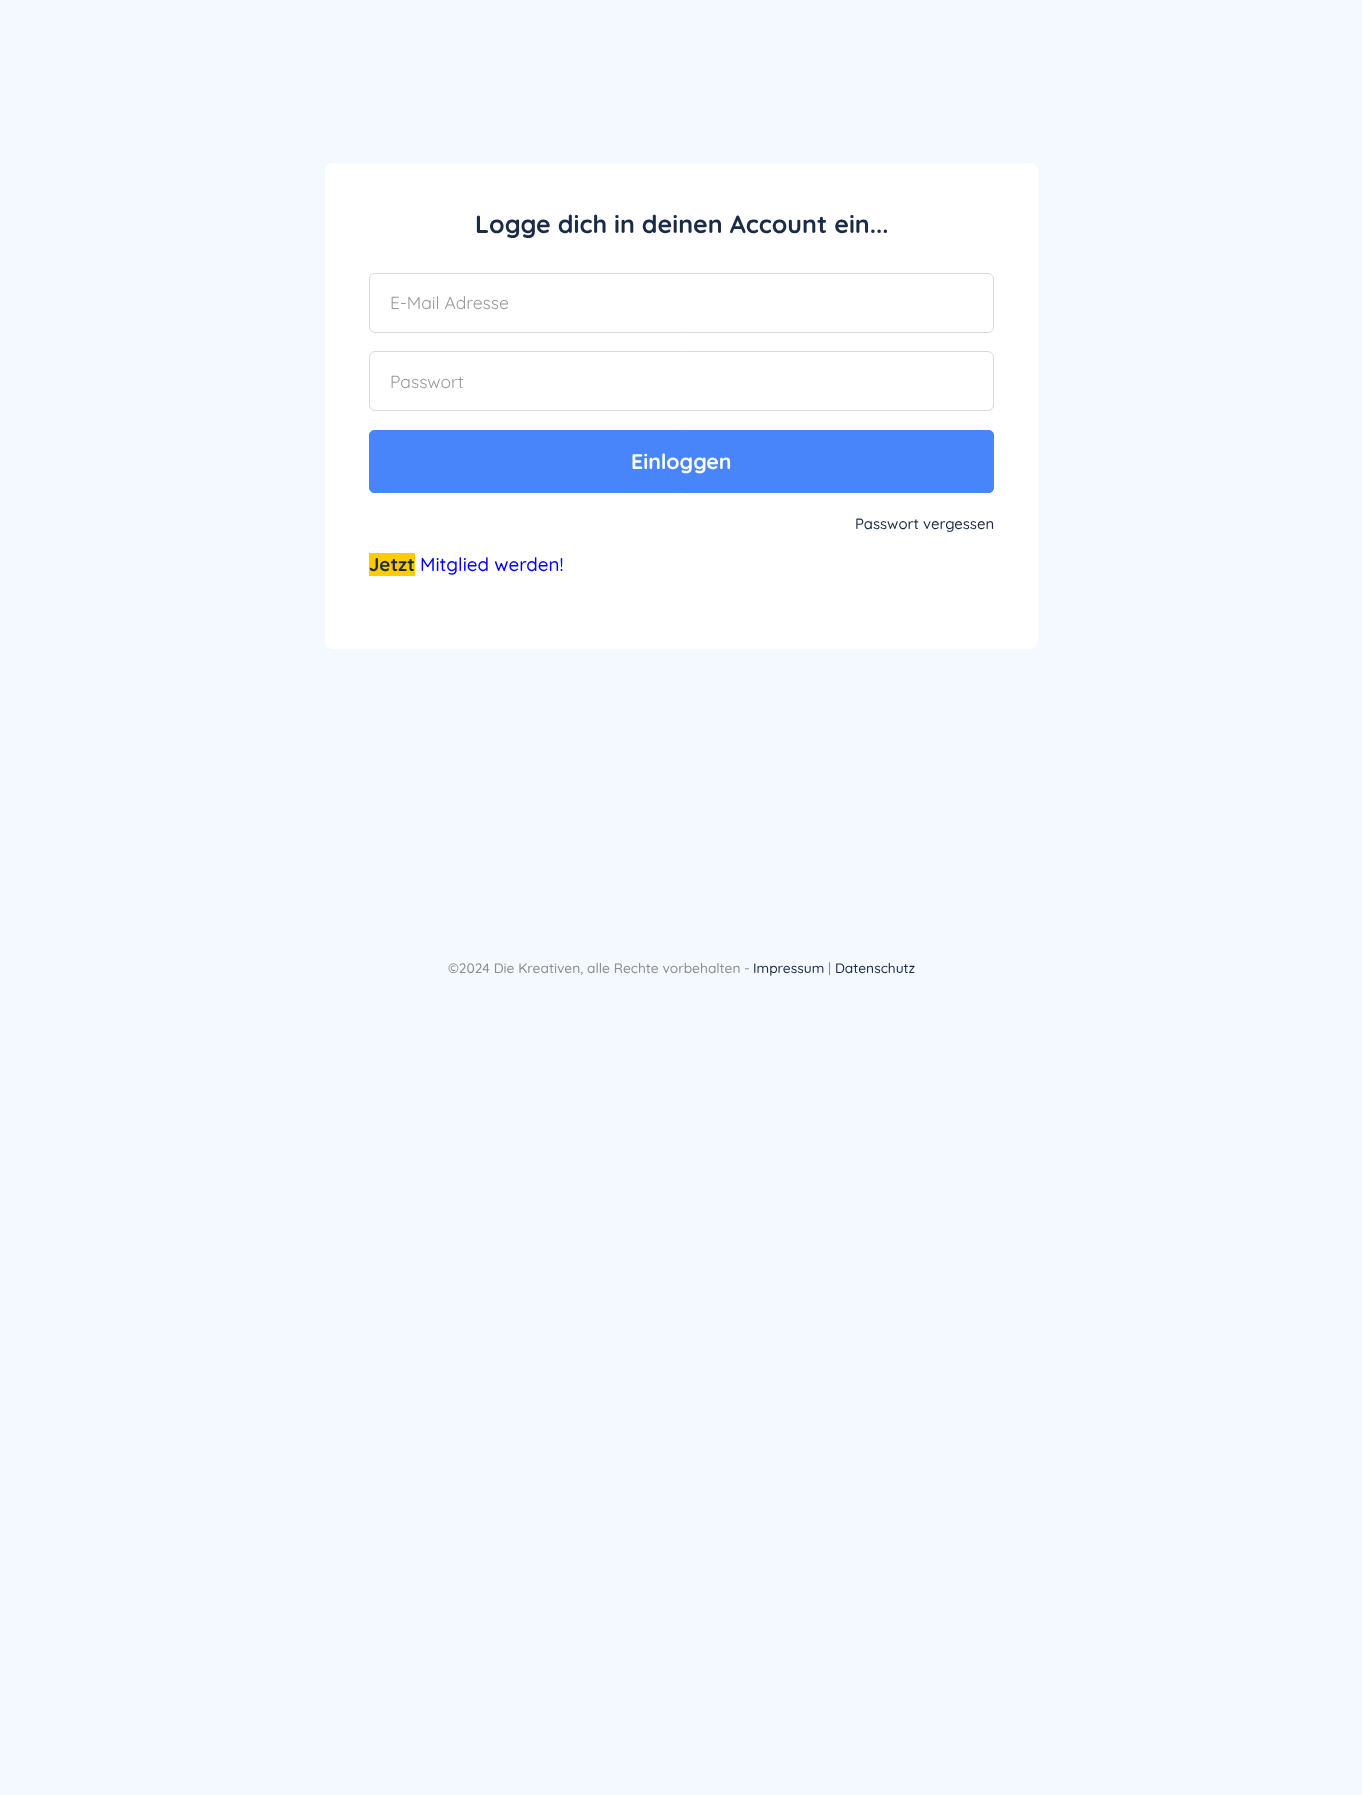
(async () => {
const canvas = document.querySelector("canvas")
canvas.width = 1362
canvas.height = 1795
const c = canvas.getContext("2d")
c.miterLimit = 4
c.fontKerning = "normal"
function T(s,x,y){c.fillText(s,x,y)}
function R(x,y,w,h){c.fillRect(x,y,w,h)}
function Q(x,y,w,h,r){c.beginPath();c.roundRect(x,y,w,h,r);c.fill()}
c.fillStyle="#f4f8ff"
R(0,0,1362,1795)
c.fillStyle="#fff"
Q(325,163,713,486,8)
c.font="bold 25px Quicksand"
c.fillStyle="#192b47"
T("Logge dich in deinen Account ein...",475,233)
c.beginPath()
c.roundRect(369.5,273.5,624,59,5.5)
c.strokeStyle="#dadada"
c.stroke()
c.font="17.5px Quicksand"
c.fillStyle="#999"
T("E-Mail Adresse",390,309)
c.beginPath()
c.roundRect(369.5,351.5,624,59,5.5)
c.stroke()
T("Passwort",390,388)
c.fillStyle="#4885fb"
c.beginPath()
c.roundRect(369.5,430.5,624,62,4.5)
c.fill()
c.strokeStyle="#4885fb"
c.stroke()
c.font="bold 21.25px Quicksand"
c.fillStyle="#fff"
T("Einloggen",631,469)
c.font="500 14.9px Quicksand"
c.fillStyle="#192b47"
T("Passwort vergessen",855,529)
c.fillStyle="#fc0"
R(369,553,46,23)
c.font="bold 18.75px Quicksand"
c.fillStyle="#192b47"
T("Jetzt",369,571)
c.font="500 18.75px Quicksand"
c.fillStyle="#00f"
T("Mitglied werden!",420,571)
c.font="500 13.75px Quicksand"
c.fillStyle="#8d8d8d"
T("©2024 Die Kreativen, alle Rechte vorbehalten -",448,973)
c.fillStyle="#192b47"
T("Impressum",753,973)
c.fillStyle="#8d8d8d"
T("|",828,973)
c.fillStyle="#192b47"
T("Datenschutz",835,973)
})()
